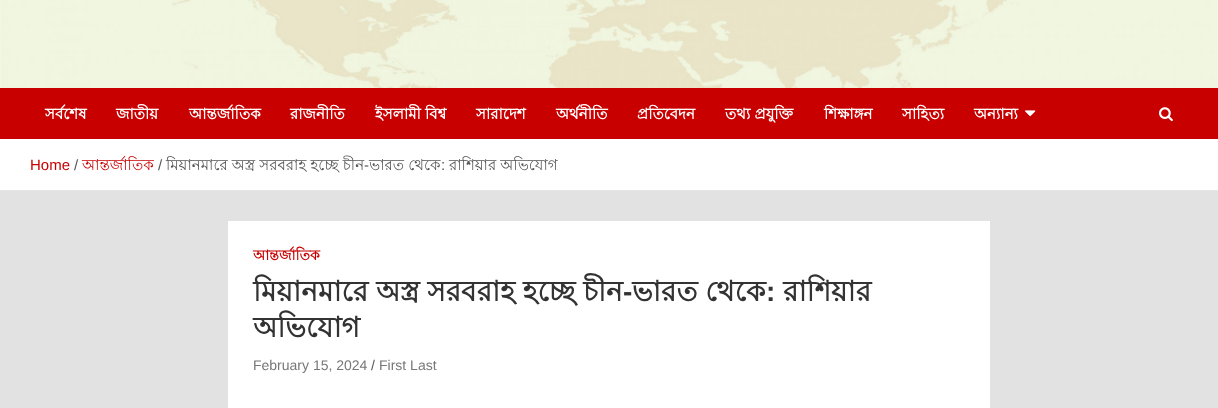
(async () => {
const canvas = document.querySelector("canvas")
canvas.width = 1218
canvas.height = 408
const c = canvas.getContext("2d")
c.miterLimit = 4
c.fontKerning = "normal"
function T(s,x,y){c.fillText(s,x,y)}
function R(x,y,w,h){c.fillRect(x,y,w,h)}
async function I(src,x,y,w,h){const img=new Image();img.src=src;await img.decode();c.drawImage(img,x,y,w,h)}
c.fillStyle="#e2e2e2"
R(0,0,1218,408)
await I("1.png",0,0,1218,88)
c.fillStyle="#c80000"
R(0,88,1218,51)
c.font="bold 15px Lohit Bengali"
c.fillStyle="#fff"
T("সর্বশেষ",45,119)
T("জাতীয়",116,119)
T("আন্তর্জাতিক",189,119)
T("রাজনীতি",290,119)
T("ইসলামী বিশ্ব",375,119)
T("সারাদেশ",476,119)
T("অর্থনীতি",556,119)
T("প্রতিবেদন",637,119)
T("তথ্য প্রযুক্তি",725,119)
T("শিক্ষাঙ্গন",824,119)
T("সাহিত্য",902,119)
T("অন্যান্য",974,119)
await I("2.png",1025,110,11,7)
await I("3.png",1159,107,14,15)
R(0,139,1218,51)
c.fillStyle="#e6e6e6"
R(0,190,1218,1)
c.font="15px Liberation Sans"
c.fillStyle="#c80000"
T("Home",30,170)
c.fillStyle="#555"
T("/",74,170)
c.font="15px Lohit Bengali"
c.fillStyle="#c80000"
T("আন্তর্জাতিক",82,170)
c.font="15px Liberation Sans"
c.fillStyle="#555"
T("/",158,170)
c.font="15px Lohit Bengali"
T("মিয়ানমারে অস্ত্র সরবরাহ হচ্ছে চীন",166,170)
c.font="15px Liberation Sans"
T("-",364,170)
c.font="15px Lohit Bengali"
T("ভারত থেকে",369,170)
c.font="15px Liberation Sans"
T(":",441,170)
c.font="15px Lohit Bengali"
T("রাশিয়ার অভিযোগ",449,170)
c.fillStyle="#fff"
R(228,221,762,187)
c.font="bold 14px Lohit Bengali"
c.fillStyle="#c80000"
T("আন্তর্জাতিক",253,260)
c.font="bold 28px Lohit Bengali"
c.fillStyle="#333"
T("মিয়ানমারে অস্ত্র সরবরাহ হচ্ছে চীন",253,301)
c.font="bold 28px Liberation Sans"
T("-",623,301)
c.font="bold 28px Lohit Bengali"
T("ভারত থেকে",632,301)
c.font="bold 28px Liberation Sans"
T(":",766,301)
c.font="bold 28px Lohit Bengali"
T("রাশিয়ার",783,301)
T("অভিযোগ",253,337)
c.font="14px Liberation Sans"
c.fillStyle="#777"
T("February 15, 2024",253,370)
c.fillStyle="#555"
T("/",371,370)
c.fillStyle="#777"
T("First Last",379,370)
})()
